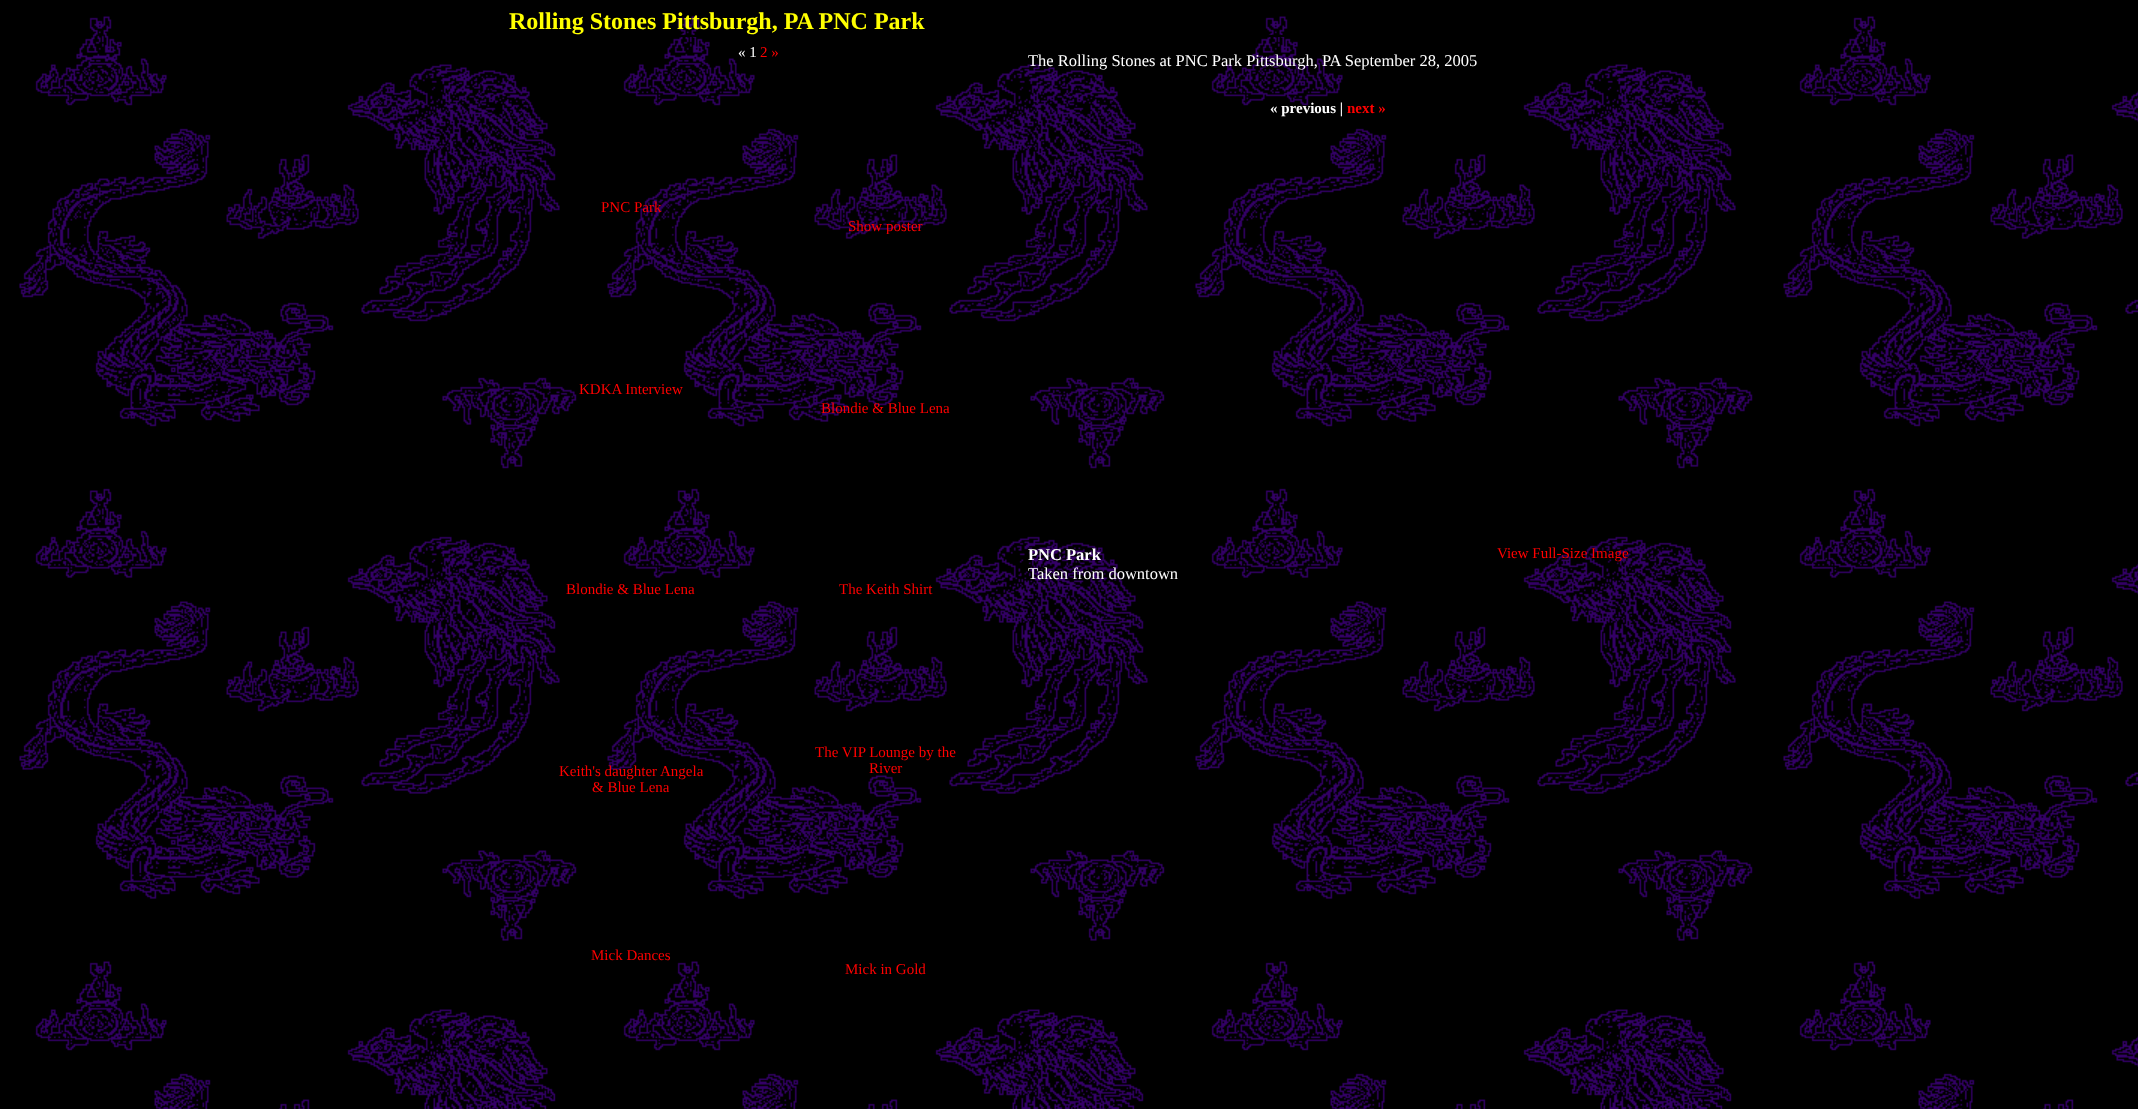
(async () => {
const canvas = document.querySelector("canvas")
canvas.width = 2138
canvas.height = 1109
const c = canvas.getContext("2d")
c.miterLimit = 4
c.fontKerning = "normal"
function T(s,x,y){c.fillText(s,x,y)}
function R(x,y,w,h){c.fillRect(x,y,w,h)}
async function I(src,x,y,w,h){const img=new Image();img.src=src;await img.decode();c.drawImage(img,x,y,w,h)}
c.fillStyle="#000"
R(0,0,2138,1109)
await I("1.png",19,16,2119,1093)
R(680,35,605,2)
c.font="bold 24px Liberation Serif"
c.fillStyle="#ff0"
T("Rolling Stones Pittsburgh, PA PNC Park",509,29)
c.font="15px Liberation Serif"
c.fillStyle="#fff"
T("« 1",738,57)
c.fillStyle="#f00"
T("2 »",760,57)
T("PNC Park",601,212)
c.save()
c.beginPath()
c.rect(812,218,150,16)
c.clip()
T("Show poster",848,231)
c.restore()
T("KDKA Interview",579,394)
T("Blondie & Blue Lena",821,413)
T("Blondie & Blue Lena",566,594)
T("The Keith Shirt",839,594)
T("The VIP Lounge by the",815,757)
T("River",869,773)
T("Keith's daughter Angela",559,776)
T("& Blue Lena",592,792)
T("Mick Dances",591,960)
T("Mick in Gold",845,974)
c.font="16.5px Liberation Serif"
c.fillStyle="#fff"
T("The Rolling Stones at PNC Park Pittsburgh, PA September 28, 2005",1028,66)
c.font="bold 15px Liberation Serif"
T("« previous |",1270,113)
c.fillStyle="#f00"
T("next »",1347,113)
c.font="bold 16.5px Liberation Serif"
c.fillStyle="#fff"
T("PNC Park",1028,560)
c.font="15px Liberation Serif"
c.fillStyle="#f00"
T("View Full-Size Image",1497,558)
c.font="16.5px Liberation Serif"
c.fillStyle="#fff"
T("Taken from downtown",1028,579)
})()
